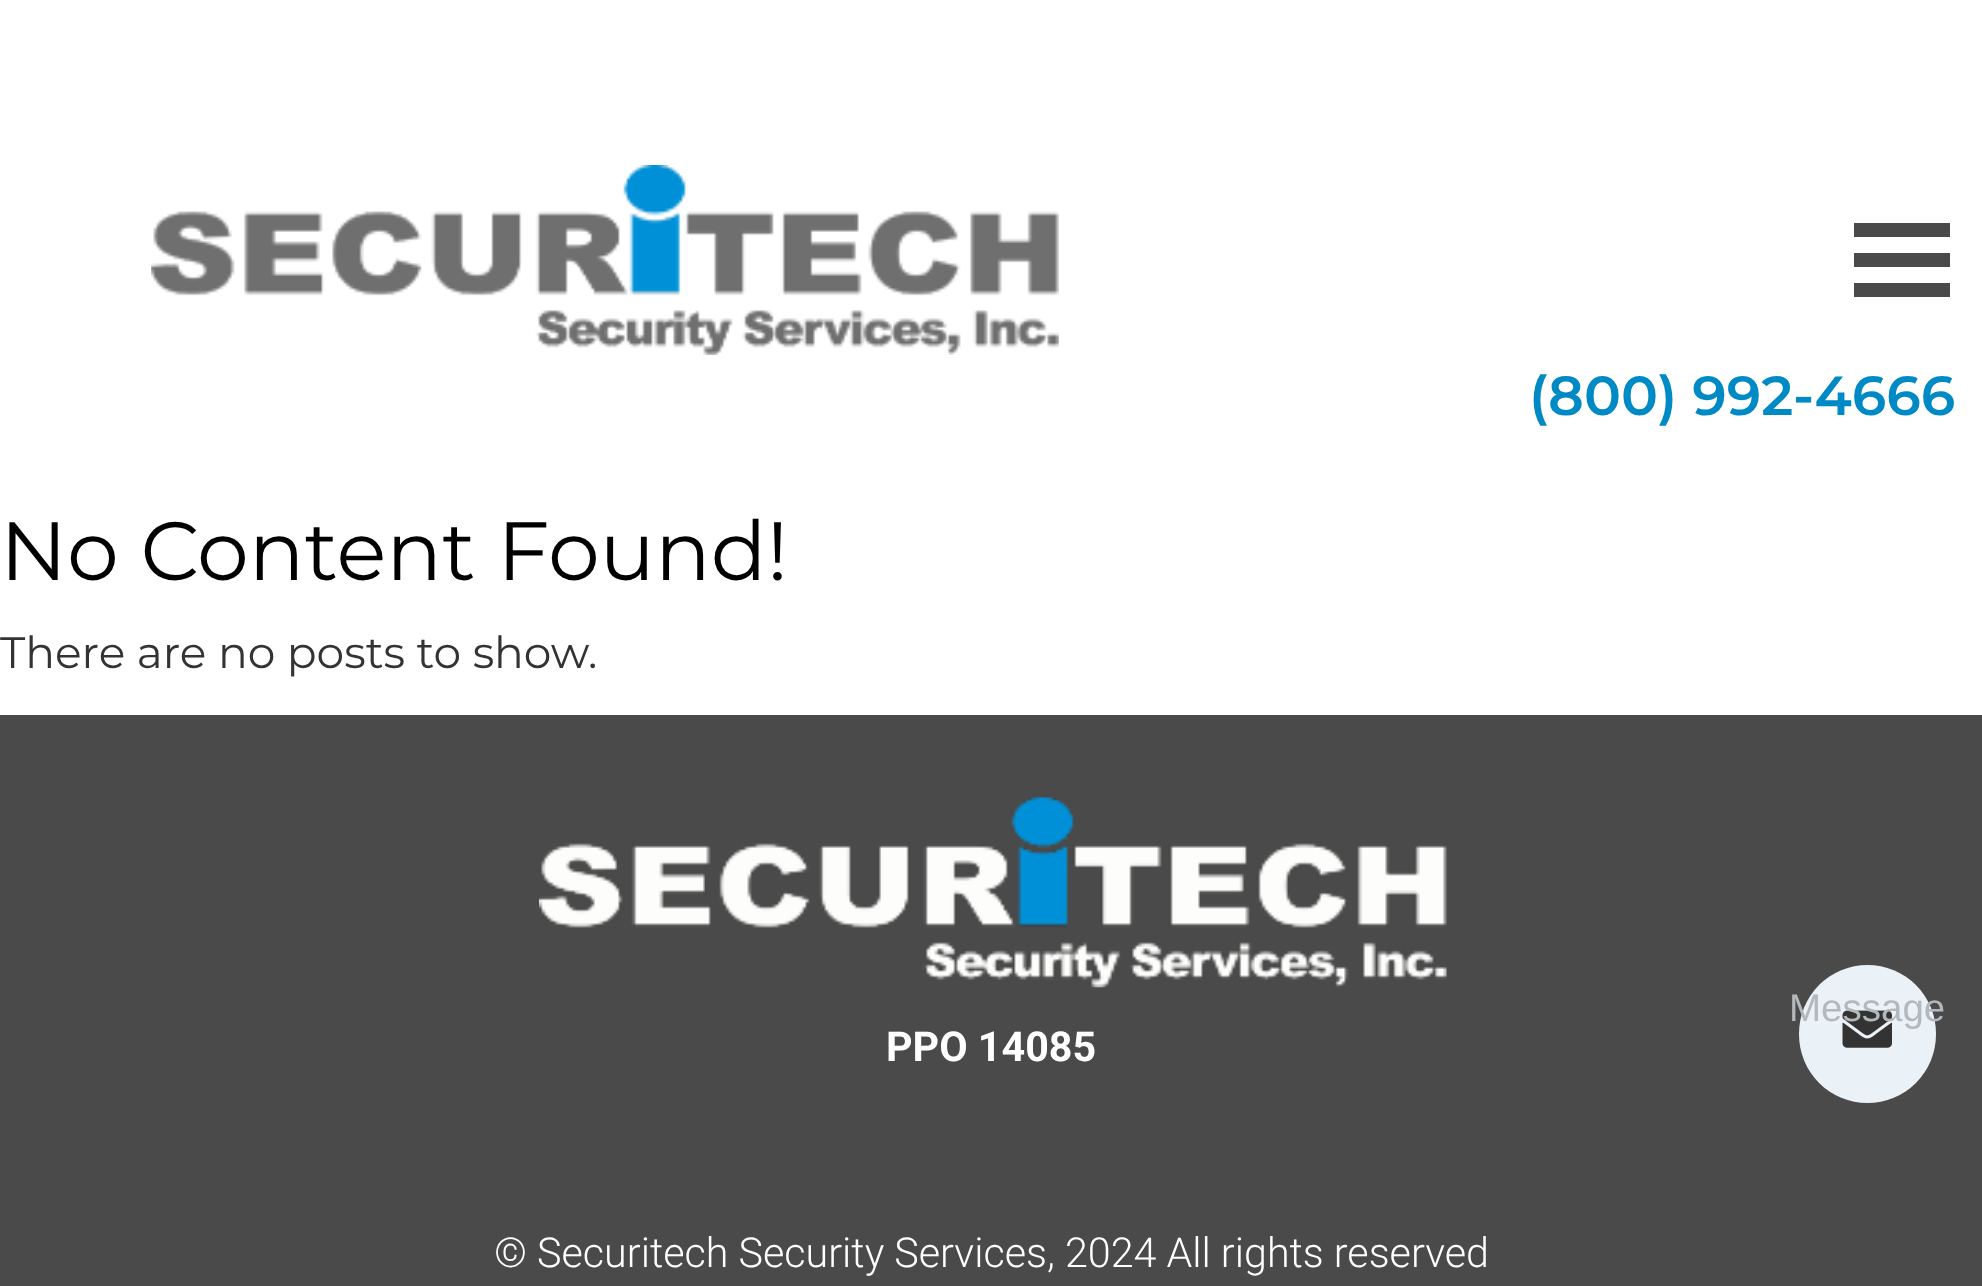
(async () => {
const canvas = document.querySelector("canvas")
canvas.width = 1982
canvas.height = 1286
const c = canvas.getContext("2d")
c.miterLimit = 4
c.fontKerning = "normal"
function T(s,x,y){c.fillText(s,x,y)}
function R(x,y,w,h){c.fillRect(x,y,w,h)}
function Q(x,y,w,h,r){c.beginPath();c.roundRect(x,y,w,h,r);c.fill()}
async function I(src,x,y,w,h){const img=new Image();img.src=src;await img.decode();c.drawImage(img,x,y,w,h)}
c.fillStyle="#fff"
R(0,0,1982,1286)
await I("1.png",151,165,908,190)
c.fillStyle="#4a4a4a"
R(1854,223,96,14)
R(1854,253,96,14)
R(1854,283,96,14)
c.font="600 55px Montserrat"
c.fillStyle="#008ac5"
T("(800) 992-4666",1529,415)
c.font="82.5px Montserrat"
c.fillStyle="#000"
T("No Content Found!",0,580)
c.font="44px Montserrat"
c.fillStyle="#333"
T("There are no posts to show.",0,668)
c.fillStyle="#4a4a4a"
R(0,715,1982,571)
c.fillStyle="#eaf2f7"
Q(1799,965,137,138,68.5)
await I("2.png",1842,1010,50,38)
c.font="38.5px Liberation Sans"
c.fillStyle="#b3b8bc"
T("Message",1789,1021)
await I("3.png",539,797,908,191)
c.font="bold 41.25px Roboto"
c.fillStyle="#fff"
T("PPO 14085",886,1061)
c.font="300 41.25px Roboto"
T("© Securitech Security Services, 2024 All rights reserved",494,1267)
})()
